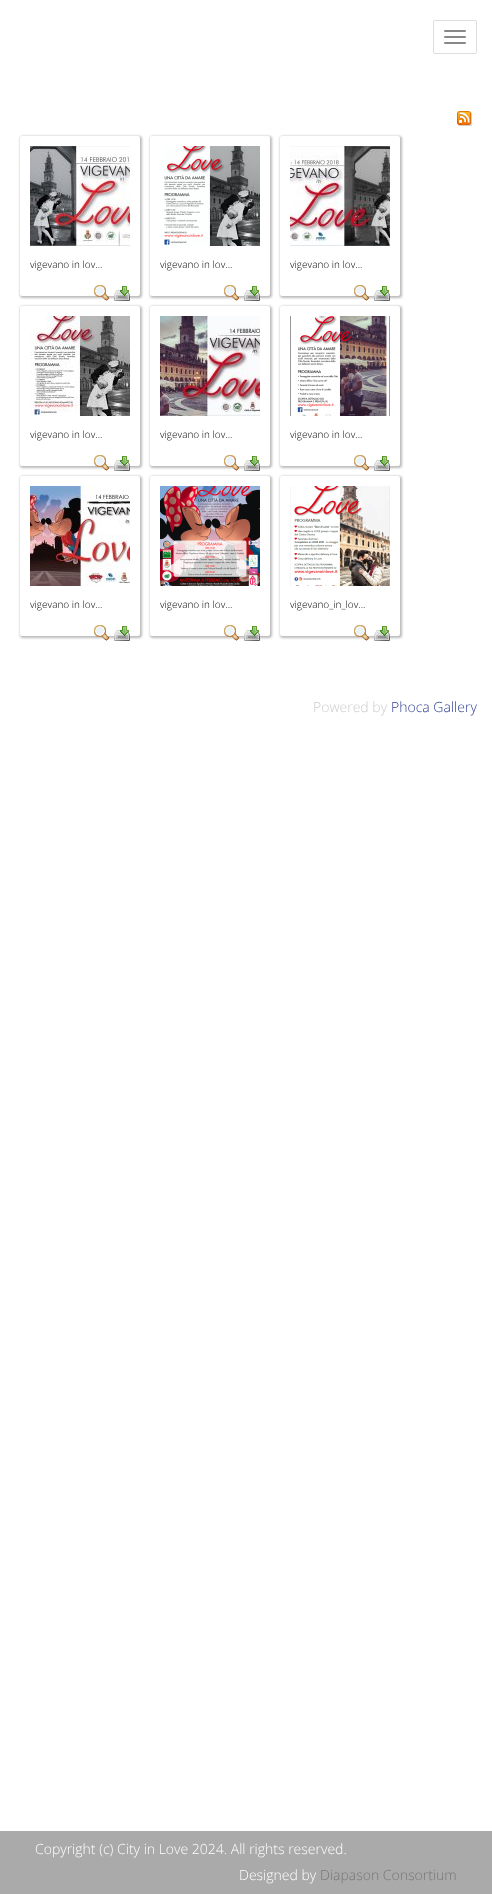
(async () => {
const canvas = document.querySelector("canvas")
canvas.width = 492
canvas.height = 1894
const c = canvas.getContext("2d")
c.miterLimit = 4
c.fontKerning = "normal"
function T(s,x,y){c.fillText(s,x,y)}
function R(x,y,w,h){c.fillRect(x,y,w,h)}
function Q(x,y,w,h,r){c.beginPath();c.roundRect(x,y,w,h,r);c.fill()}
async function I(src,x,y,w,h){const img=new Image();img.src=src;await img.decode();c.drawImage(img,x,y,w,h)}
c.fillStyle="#fff"
R(0,0,492,1894)
c.beginPath()
c.roundRect(433.5,20.5,43,33,1.5)
c.strokeStyle="#ddd"
c.stroke()
c.fillStyle="#888"
Q(444,30,22,2,1)
Q(444,36,22,2,1)
Q(444,42,22,2,1)
await I("1.png",457,111,15,15)
c.fillStyle="#78787880"
c.filter="blur(1px)"
c.beginPath()
c.roundRect(20,136,122,162,3)
c.fill()
c.filter="none"
c.fillStyle="#fff"
Q(20,136,120,160,2)
await I("2.png",30,146,100,100)
c.font="300 10px Open Sans"
c.fillStyle="#000"
T("vigevano in lov...",30,268)
await I("3.png",94,285,16,16)
await I("4.png",114,286,16,15)
c.fillStyle="#78787880"
c.filter="blur(1px)"
c.beginPath()
c.roundRect(150,136,122,162,3)
c.fill()
c.filter="none"
c.fillStyle="#fff"
Q(150,136,120,160,2)
await I("5.png",164,146,96,100)
c.fillStyle="#000"
T("vigevano in lov...",160,268)
await I("3.png",224,285,16,16)
await I("4.png",244,286,16,15)
c.fillStyle="#78787880"
c.filter="blur(1px)"
c.beginPath()
c.roundRect(280,136,122,162,3)
c.fill()
c.filter="none"
c.fillStyle="#fff"
Q(280,136,120,160,2)
await I("6.png",290,146,100,100)
c.fillStyle="#000"
T("vigevano in lov...",290,268)
await I("3.png",354,285,16,16)
await I("4.png",374,286,16,15)
c.fillStyle="#78787880"
c.filter="blur(1px)"
c.beginPath()
c.roundRect(20,306,122,162,3)
c.fill()
c.filter="none"
c.fillStyle="#fff"
Q(20,306,120,160,2)
await I("7.png",30,316,100,100)
c.fillStyle="#000"
T("vigevano in lov...",30,438)
await I("3.png",94,455,16,16)
await I("4.png",114,456,16,15)
c.fillStyle="#78787880"
c.filter="blur(1px)"
c.beginPath()
c.roundRect(150,306,122,162,3)
c.fill()
c.filter="none"
c.fillStyle="#fff"
Q(150,306,120,160,2)
await I("8.png",160,316,100,100)
c.fillStyle="#000"
T("vigevano in lov...",160,438)
await I("3.png",224,455,16,16)
await I("4.png",244,456,16,15)
c.fillStyle="#78787880"
c.filter="blur(1px)"
c.beginPath()
c.roundRect(280,306,122,162,3)
c.fill()
c.filter="none"
c.fillStyle="#fff"
Q(280,306,120,160,2)
await I("9.png",290,316,100,100)
c.fillStyle="#000"
T("vigevano in lov...",290,438)
await I("3.png",354,455,16,16)
await I("4.png",374,456,16,15)
c.fillStyle="#78787880"
c.filter="blur(1px)"
c.beginPath()
c.roundRect(20,476,122,162,3)
c.fill()
c.filter="none"
c.fillStyle="#fff"
Q(20,476,120,160,2)
await I("10.png",30,486,100,100)
c.fillStyle="#000"
T("vigevano in lov...",30,608)
await I("3.png",94,625,16,16)
await I("4.png",114,626,16,15)
c.fillStyle="#78787880"
c.filter="blur(1px)"
c.beginPath()
c.roundRect(150,476,122,162,3)
c.fill()
c.filter="none"
c.fillStyle="#fff"
Q(150,476,120,160,2)
await I("11.png",160,486,100,100)
c.fillStyle="#000"
T("vigevano in lov...",160,608)
await I("3.png",224,625,16,16)
await I("4.png",244,626,16,15)
c.fillStyle="#78787880"
c.filter="blur(1px)"
c.beginPath()
c.roundRect(280,476,122,162,3)
c.fill()
c.filter="none"
c.fillStyle="#fff"
Q(280,476,120,160,2)
await I("12.png",290,486,100,100)
c.fillStyle="#000"
T("vigevano_in_lov...",290,608)
await I("3.png",354,625,16,16)
await I("4.png",374,626,16,15)
c.font="300 14px Open Sans"
c.fillStyle="#ccc"
T("Powered by",313,712)
c.fillStyle="#2c3d91"
T("Phoca Gallery",391,712)
c.fillStyle="#aaa"
R(0,1831,492,63)
c.fillStyle="#fff"
T("Copyright (c) City in Love 2024. All rights reserved.",35,1854)
T("Designed by",239,1880)
c.fillStyle="#777"
T("Diapason Consortium",320,1880)
})()
